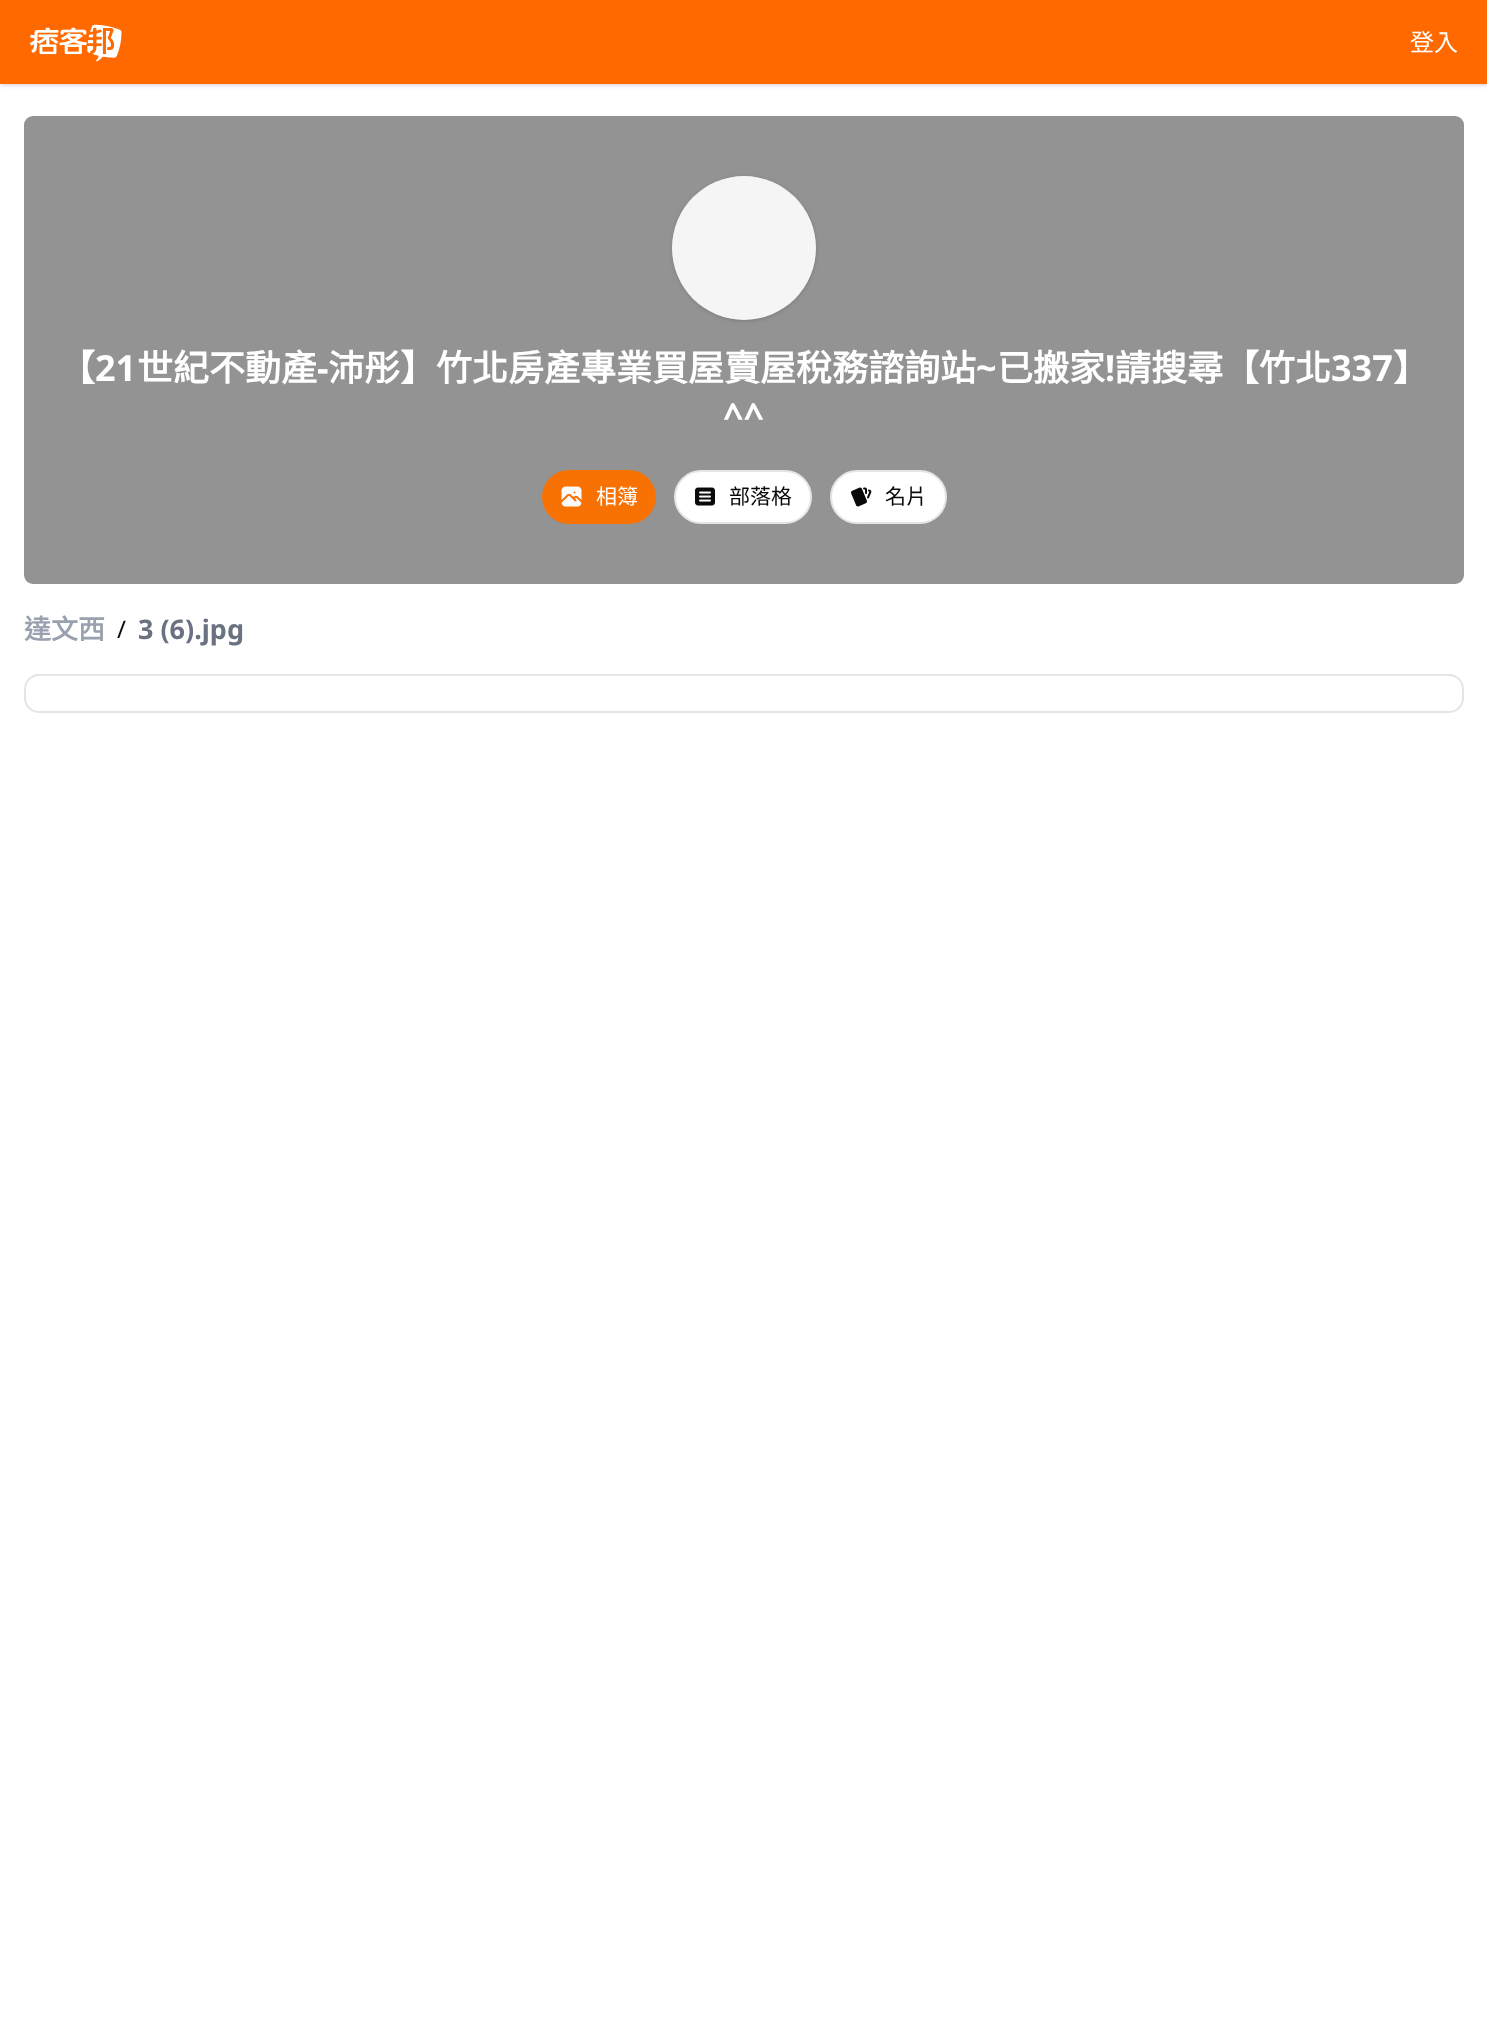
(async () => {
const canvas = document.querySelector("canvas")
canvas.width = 1487
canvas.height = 2024
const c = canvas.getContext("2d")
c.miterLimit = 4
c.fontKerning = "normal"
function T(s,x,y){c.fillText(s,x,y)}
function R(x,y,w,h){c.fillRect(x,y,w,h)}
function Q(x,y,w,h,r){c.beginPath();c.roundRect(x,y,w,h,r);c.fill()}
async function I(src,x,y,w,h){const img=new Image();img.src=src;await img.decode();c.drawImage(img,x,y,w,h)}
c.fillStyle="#fff"
R(0,0,1487,2024)
c.fillStyle="#0000001a"
c.filter="blur(1.5px)"
c.beginPath()
c.rect(2,3,1485,81)
c.fill()
c.filter="none"
c.filter="blur(2px)"
c.beginPath()
c.rect(0,2,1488,84)
c.fill()
c.filter="none"
c.fillStyle="#ff6900"
R(0,0,1487,84)
await I("1.png",30,24,92,38)
c.font="24px Noto Sans CJK TC"
c.fillStyle="#fff"
T("登入",1410,51)
c.fillStyle="#f5f5f5"
Q(24,116,1440,468,9)
c.fillStyle="#00000066"
Q(24,116,1440,468,9)
c.fillStyle="#0000001a"
c.filter="blur(1.5px)"
c.beginPath()
c.roundRect(674,179,141,141,70.5)
c.fill()
c.filter="none"
c.filter="blur(2px)"
c.beginPath()
c.roundRect(672,177,144,144,72)
c.fill()
c.filter="none"
c.fillStyle="#f5f5f5"
c.beginPath()
c.arc(744,248,72,0,7)
c.fill()
c.font="bold 36px Noto Sans CJK TC"
c.fillStyle="#fff"
T("【",59,381)
c.font="bold 36px Noto Sans"
T("21",95,381)
c.font="bold 36px Noto Sans CJK TC"
T("世紀不動產",137,381)
c.font="bold 36px Noto Sans"
T("-",317,381)
c.font="bold 36px Noto Sans CJK TC"
T("沛彤】竹北房產專業買屋賣屋稅務諮詢站",328,381)
c.font="bold 36px Noto Sans"
T("~",976,381)
c.font="bold 36px Noto Sans CJK TC"
T("已搬家",997,381)
c.font="bold 36px Noto Sans"
T("!",1105,381)
c.font="bold 36px Noto Sans CJK TC"
T("請搜尋【竹北",1115,381)
c.font="bold 36px Noto Sans"
T("337",1331,381)
c.font="bold 36px Noto Sans CJK TC"
T("】",1393,381)
c.font="bold 36px Noto Sans"
T("^^",723,429)
c.fillStyle="#f87103"
Q(542,470,114,54,27)
await I("2.png",561,486,21,21)
c.font="21px Noto Sans CJK TC"
c.fillStyle="#fff"
T("相簿",596,504)
c.beginPath()
c.roundRect(675,471,136,52,26)
c.fill()
c.strokeStyle="#e5e5e5"
c.lineWidth=2
c.stroke()
await I("3.png",695,487,20,19)
c.fillStyle="#0a0a0a"
T("部落格",729,504)
c.fillStyle="#fff"
c.beginPath()
c.roundRect(831,471,115,52,26)
c.fill()
c.stroke()
await I("4.png",851,487,21,20)
c.fillStyle="#0a0a0a"
T("名片",885,504)
c.font="bold 27px Noto Sans CJK TC"
c.fillStyle="#99a1af"
T("達文西",24,639)
c.font="24px Noto Sans"
c.fillStyle="#0a0a0a"
T("/",117,638)
c.font="bold 27px Noto Sans"
c.fillStyle="#6a7282"
T("3 (6).jpg",138,639)
c.beginPath()
c.roundRect(25,675,1438,37,14)
c.stroke()
})()
